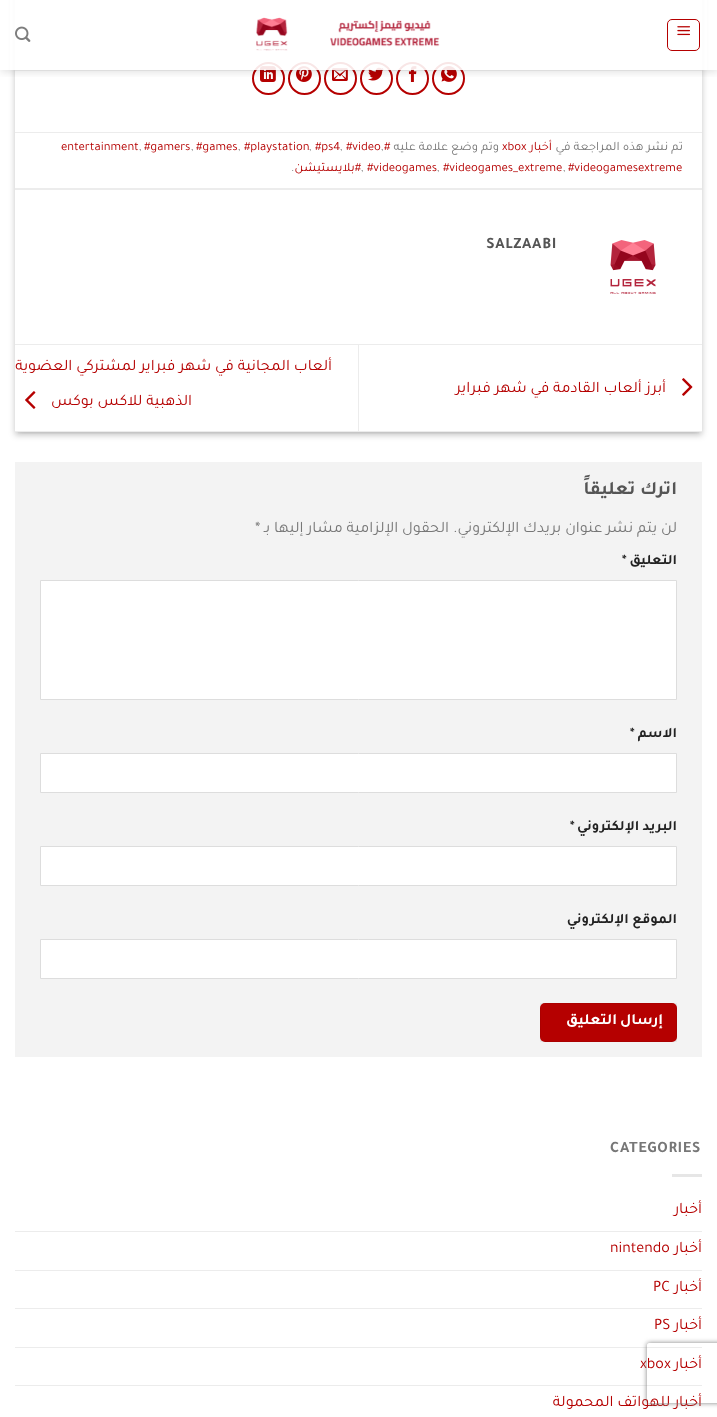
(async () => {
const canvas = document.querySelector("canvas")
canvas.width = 717
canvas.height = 1417
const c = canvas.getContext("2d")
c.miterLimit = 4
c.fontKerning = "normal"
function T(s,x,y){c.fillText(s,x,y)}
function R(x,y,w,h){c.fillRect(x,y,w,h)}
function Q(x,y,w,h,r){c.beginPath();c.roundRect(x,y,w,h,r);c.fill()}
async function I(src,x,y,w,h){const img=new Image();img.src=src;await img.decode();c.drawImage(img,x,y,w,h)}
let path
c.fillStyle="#fff"
R(0,0,717,1417)
c.save()
path = new Path2D("M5 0h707v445h-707zm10-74h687v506h-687z")
c.clip(path,"evenodd")
c.fillStyle="#0000003b"
c.filter="blur(3px)"
c.beginPath()
c.rect(15,-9,687,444)
c.fill()
c.filter="none"
c.restore()
c.save()
c.beginPath()
c.rect(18,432,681,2)
c.clip()
c.fillStyle="#00000029"
c.filter="blur(3px)"
c.beginPath()
c.rect(19,-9,679,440)
c.fill()
c.filter="none"
c.restore()
c.fillStyle="#e6e6e6"
R(344,43,30,3)
c.beginPath()
c.arc(448.5,78.5,15.5,0,7)
c.strokeStyle="#b50000"
c.lineWidth=2
c.stroke()
await I("4.png",441,66,16,16)
c.beginPath()
c.arc(412.5,78.5,15.5,0,7)
c.stroke()
await I("5.png",408,66,9,16)
c.beginPath()
c.arc(376.5,78.5,15.5,0,7)
c.stroke()
await I("6.png",368,67,16,14)
c.beginPath()
c.arc(340.5,78.5,15.5,0,7)
c.stroke()
await I("7.png",332,68,16,13)
c.beginPath()
c.arc(304.5,78.5,15.5,0,7)
c.stroke()
await I("8.png",296,66,16,16)
c.beginPath()
c.arc(268.5,78.5,15.5,0,7)
c.stroke()
await I("9.png",260,66,16,16)
c.save()
c.beginPath()
c.rect(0,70,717,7)
c.clip()
c.fillStyle="#00000026"
c.filter="blur(5px)"
c.beginPath()
c.rect(1,1,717,70)
c.fill()
c.filter="none"
c.restore()
c.fillStyle="#ffffffe6"
R(10,0,697,70)
c.beginPath()
c.roundRect(667.5,19.5,32,31,4.5)
c.lineWidth=1
c.stroke()
await I("1.png",677,26,13,10)
await I("2.png",256,17,184,34)
await I("3.png",15,26,16,16)
c.fillStyle="#7777771a"
R(15,70,687,1)
c.fillStyle="#ececec"
R(15,132,687,1)
R(15,188,687,2)
c.direction="rtl"
c.font="12.75px Tajawal"
c.fillStyle="#777"
T("تم نشر هذه المراجعة في",683,150)
c.fillStyle="#b50000"
T("أخبار",552,150)
c.direction="ltr"
T("xbox",502,150)
c.direction="rtl"
c.fillStyle="#777"
T("وتم وضع علامة عليه",499,150)
c.direction="ltr"
c.fillStyle="#b50000"
T("#",384,150)
T("#video",346,150)
T("#ps4",315,150)
T("#playstation",244,150)
T("#games",196,150)
T("#gamers",144,150)
T("entertainment",61,150)
c.fillStyle="#777"
T(",",381,150)
T(",",340,150)
T(",",309,150)
T(",",238,150)
T(",",191,150)
T(",",139,150)
c.fillStyle="#b50000"
T("#videogamesextreme",568,171)
c.fillStyle="#777"
T(",",563,171)
c.fillStyle="#b50000"
T("#videogames_extreme",443,171)
c.fillStyle="#777"
T(",",437,171)
c.fillStyle="#b50000"
T("#videogames",367,171)
c.fillStyle="#777"
T(",",361,171)
c.direction="rtl"
c.fillStyle="#b50000"
T("#بلايستيشن",361,171)
c.direction="ltr"
c.fillStyle="#777"
T(".",291,171)
await I("10.png",610,240,46,54)
c.letterSpacing="0.75px"
c.font="bold 16px Tajawal"
c.fillStyle="#555"
T("SALZAABI",486,248)
c.fillStyle="#ececec"
R(15,344,687,1)
R(15,431,687,1)
await I("11.png",682,378,11,18)
c.letterSpacing="0px"
c.direction="rtl"
c.font="16px Tajawal"
c.fillStyle="#b50000"
T("أبرز ألعاب القادمة في شهر فبراير",666,392)
c.fillStyle="#ececec"
R(358,345,1,86)
c.fillStyle="#b50000"
T("ألعاب المجانية في شهر فبراير لمشتركي العضوية",332,370)
T("الذهبية للاكس بوكس",192,405)
await I("12.png",25,391,11,18)
c.fillStyle="#f3f3f3"
R(15,462,687,595)
c.font="bold 19px Tajawal"
c.fillStyle="#555"
T("اترك تعليقاً",677,494)
c.font="16px Tajawal"
c.fillStyle="#777"
T("لن يتم نشر عنوان بريدك الإلكتروني.",677,532)
T("الحقول الإلزامية مشار إليها بـ",449,532)
c.direction="ltr"
T("*",255,532)
c.direction="rtl"
c.font="bold 14.5px Tajawal"
c.fillStyle="#222"
T("التعليق",677,564)
c.direction="ltr"
T("*",622,564)
c.fillStyle="#fff"
c.beginPath()
c.rect(40.5,580.5,636,119)
c.fill()
c.strokeStyle="#ddd"
c.stroke()
c.direction="rtl"
c.fillStyle="#222"
T("الاسم",677,737)
c.direction="ltr"
T("*",630,737)
c.fillStyle="#fff"
c.beginPath()
c.rect(40.5,753.5,636,39)
c.fill()
c.stroke()
c.direction="rtl"
c.fillStyle="#222"
T("البريد الإلكتروني",677,830)
c.direction="ltr"
T("*",570,830)
c.fillStyle="#fff"
c.beginPath()
c.rect(40.5,846.5,636,39)
c.fill()
c.stroke()
c.direction="rtl"
c.fillStyle="#222"
T("الموقع الإلكتروني",677,923)
c.fillStyle="#fff"
c.beginPath()
c.rect(40.5,939.5,636,39)
c.fill()
c.stroke()
c.fillStyle="#b50000"
Q(540,1003,137,39,5)
c.strokeStyle="#0000000d"
c.strokeRect(540.5,1003.5,136,38)
c.letterSpacing="0.5px"
c.wordSpacing="-1px"
c.font="bold 15.5px Tajawal"
c.fillStyle="#fff"
T("إرسال التعليق",663,1024)
c.letterSpacing="0.75px"
c.wordSpacing="0px"
c.direction="ltr"
c.font="bold 16px Tajawal"
c.fillStyle="#777"
T("CATEGORIES",610,1152)
c.fillStyle="#e6e6e6"
R(672,1174,30,3)
c.letterSpacing="0px"
c.direction="rtl"
c.font="16px Tajawal"
c.fillStyle="#b50000"
T("أخبار",702,1213)
c.fillStyle="#ececec"
R(15,1231,687,1)
c.fillStyle="#b50000"
T("أخبار",702,1252)
c.direction="ltr"
T("nintendo",610,1252)
c.fillStyle="#ececec"
R(15,1270,687,1)
c.direction="rtl"
c.fillStyle="#b50000"
T("أخبار",702,1291)
c.direction="ltr"
T("PC",653,1291)
c.fillStyle="#ececec"
R(15,1308,687,1)
c.direction="rtl"
c.fillStyle="#b50000"
T("أخبار",702,1329)
c.direction="ltr"
T("PS",654,1329)
c.fillStyle="#ececec"
R(15,1347,687,1)
c.direction="rtl"
c.fillStyle="#b50000"
T("أخبار",702,1368)
c.direction="ltr"
T("xbox",640,1368)
c.fillStyle="#ececec"
R(15,1385,687,1)
c.direction="rtl"
c.fillStyle="#b50000"
T("أخبار للهواتف المحمولة",702,1406)
c.save()
path = new Path2D("M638 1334h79v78h-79zm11 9h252c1 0 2 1 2 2v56c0 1-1 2-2 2h-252c-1 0-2-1-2-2v-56c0-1 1-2 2-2z")
c.clip(path,"evenodd")
c.fillStyle="#808080"
c.filter="blur(2.5px)"
c.beginPath()
c.roundRect(647,1343,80,60,2)
c.fill()
c.filter="none"
c.restore()
})()
